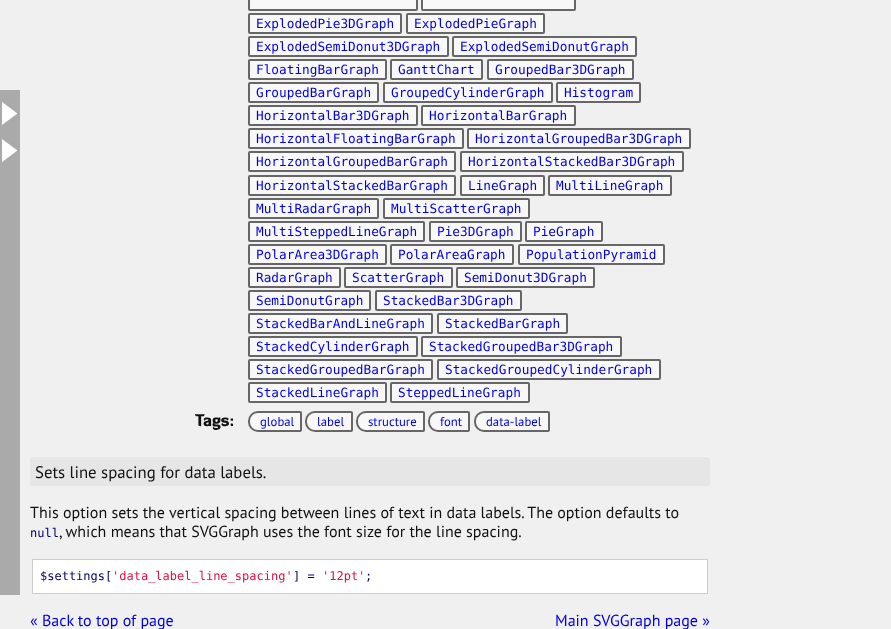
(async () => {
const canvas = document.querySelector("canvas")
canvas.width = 891
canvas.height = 629
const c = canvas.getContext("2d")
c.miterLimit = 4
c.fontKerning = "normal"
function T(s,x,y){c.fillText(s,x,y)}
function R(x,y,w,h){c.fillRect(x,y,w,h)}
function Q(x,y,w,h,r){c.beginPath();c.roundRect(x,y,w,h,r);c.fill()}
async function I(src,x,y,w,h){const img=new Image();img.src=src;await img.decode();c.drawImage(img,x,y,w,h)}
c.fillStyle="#f0f0f0"
R(0,0,891,629)
c.fillStyle="#aaa"
R(0,90,20,505)
await I("1.png",2,102,16,60)
c.fillStyle="#f8f8f8"
c.beginPath()
c.roundRect(249,-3,168,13,1)
c.fill()
c.strokeStyle="#666"
c.lineWidth=2
c.stroke()
c.beginPath()
c.roundRect(422,-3,153,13,1)
c.fill()
c.stroke()
c.beginPath()
c.roundRect(249,14,152,19,1)
c.fill()
c.stroke()
c.font="12.75px DejaVu Sans Mono"
c.fillStyle="#0000e2"
T("ExplodedPie3DGraph",256,28)
c.fillStyle="#f8f8f8"
c.beginPath()
c.roundRect(407,14,137,19,1)
c.fill()
c.stroke()
c.fillStyle="#0000e2"
T("ExplodedPieGraph",414,28)
c.fillStyle="#f8f8f8"
c.beginPath()
c.roundRect(249,37,199,19,1)
c.fill()
c.stroke()
c.fillStyle="#0000e2"
T("ExplodedSemiDonut3DGraph",256,51)
c.fillStyle="#f8f8f8"
c.beginPath()
c.roundRect(453,37,183,19,1)
c.fill()
c.stroke()
c.fillStyle="#0000e2"
T("ExplodedSemiDonutGraph",460,51)
c.fillStyle="#f8f8f8"
c.beginPath()
c.roundRect(249,60,137,19,1)
c.fill()
c.stroke()
c.fillStyle="#0000e2"
T("FloatingBarGraph",256,74)
c.fillStyle="#f8f8f8"
c.beginPath()
c.roundRect(391,60,91,19,1)
c.fill()
c.stroke()
c.fillStyle="#0000e2"
T("GanttChart",398,74)
c.fillStyle="#f8f8f8"
c.beginPath()
c.roundRect(488,60,145,19,1)
c.fill()
c.stroke()
c.fillStyle="#0000e2"
T("GroupedBar3DGraph",495,74)
c.fillStyle="#f8f8f8"
c.beginPath()
c.roundRect(249,83,129,19,1)
c.fill()
c.stroke()
c.fillStyle="#0000e2"
T("GroupedBarGraph",256,97)
c.fillStyle="#f8f8f8"
c.beginPath()
c.roundRect(384,83,168,19,1)
c.fill()
c.stroke()
c.fillStyle="#0000e2"
T("GroupedCylinderGraph",391,97)
c.fillStyle="#f8f8f8"
c.beginPath()
c.roundRect(557,83,83,19,1)
c.fill()
c.stroke()
c.fillStyle="#0000e2"
T("Histogram",564,97)
c.fillStyle="#f8f8f8"
c.beginPath()
c.roundRect(249,106,168,19,1)
c.fill()
c.stroke()
c.fillStyle="#0000e2"
T("HorizontalBar3DGraph",256,120)
c.fillStyle="#f8f8f8"
c.beginPath()
c.roundRect(422,106,153,19,1)
c.fill()
c.stroke()
c.fillStyle="#0000e2"
T("HorizontalBarGraph",429,120)
c.fillStyle="#f8f8f8"
c.beginPath()
c.roundRect(249,129,214,19,1)
c.fill()
c.stroke()
c.fillStyle="#0000e2"
T("HorizontalFloatingBarGraph",256,143)
c.fillStyle="#f8f8f8"
c.beginPath()
c.roundRect(468,129,222,19,1)
c.fill()
c.stroke()
c.fillStyle="#0000e2"
T("HorizontalGroupedBar3DGraph",475,143)
c.fillStyle="#f8f8f8"
c.beginPath()
c.roundRect(249,152,206,19,1)
c.fill()
c.stroke()
c.fillStyle="#0000e2"
T("HorizontalGroupedBarGraph",256,166)
c.fillStyle="#f8f8f8"
c.beginPath()
c.roundRect(461,152,222,19,1)
c.fill()
c.stroke()
c.fillStyle="#0000e2"
T("HorizontalStackedBar3DGraph",468,166)
c.fillStyle="#f8f8f8"
c.beginPath()
c.roundRect(249,176,206,19,1)
c.fill()
c.stroke()
c.fillStyle="#0000e2"
T("HorizontalStackedBarGraph",256,190)
c.fillStyle="#f8f8f8"
c.beginPath()
c.roundRect(461,176,83,19,1)
c.fill()
c.stroke()
c.fillStyle="#0000e2"
T("LineGraph",468,190)
c.fillStyle="#f8f8f8"
c.beginPath()
c.roundRect(549,176,122,19,1)
c.fill()
c.stroke()
c.fillStyle="#0000e2"
T("MultiLineGraph",556,190)
c.fillStyle="#f8f8f8"
c.beginPath()
c.roundRect(249,199,129,19,1)
c.fill()
c.stroke()
c.fillStyle="#0000e2"
T("MultiRadarGraph",256,213)
c.fillStyle="#f8f8f8"
c.beginPath()
c.roundRect(384,199,145,19,1)
c.fill()
c.stroke()
c.fillStyle="#0000e2"
T("MultiScatterGraph",391,213)
c.fillStyle="#f8f8f8"
c.beginPath()
c.roundRect(249,222,175,19,1)
c.fill()
c.stroke()
c.fillStyle="#0000e2"
T("MultiSteppedLineGraph",256,236)
c.fillStyle="#f8f8f8"
c.beginPath()
c.roundRect(430,222,91,19,1)
c.fill()
c.stroke()
c.fillStyle="#0000e2"
T("Pie3DGraph",437,236)
c.fillStyle="#f8f8f8"
c.beginPath()
c.roundRect(526,222,76,19,1)
c.fill()
c.stroke()
c.fillStyle="#0000e2"
T("PieGraph",533,236)
c.fillStyle="#f8f8f8"
c.beginPath()
c.roundRect(249,245,137,19,1)
c.fill()
c.stroke()
c.fillStyle="#0000e2"
T("PolarArea3DGraph",256,259)
c.fillStyle="#f8f8f8"
c.beginPath()
c.roundRect(391,245,122,19,1)
c.fill()
c.stroke()
c.fillStyle="#0000e2"
T("PolarAreaGraph",398,259)
c.fillStyle="#f8f8f8"
c.beginPath()
c.roundRect(519,245,145,19,1)
c.fill()
c.stroke()
c.fillStyle="#0000e2"
T("PopulationPyramid",526,259)
c.fillStyle="#f8f8f8"
c.beginPath()
c.roundRect(249,268,91,19,1)
c.fill()
c.stroke()
c.fillStyle="#0000e2"
T("RadarGraph",256,282)
c.fillStyle="#f8f8f8"
c.beginPath()
c.roundRect(345,268,107,19,1)
c.fill()
c.stroke()
c.fillStyle="#0000e2"
T("ScatterGraph",352,282)
c.fillStyle="#f8f8f8"
c.beginPath()
c.roundRect(457,268,137,19,1)
c.fill()
c.stroke()
c.fillStyle="#0000e2"
T("SemiDonut3DGraph",464,282)
c.fillStyle="#f8f8f8"
c.beginPath()
c.roundRect(249,291,121,19,1)
c.fill()
c.stroke()
c.fillStyle="#0000e2"
T("SemiDonutGraph",256,305)
c.fillStyle="#f8f8f8"
c.beginPath()
c.roundRect(376,291,145,19,1)
c.fill()
c.stroke()
c.fillStyle="#0000e2"
T("StackedBar3DGraph",383,305)
c.fillStyle="#f8f8f8"
c.beginPath()
c.roundRect(249,314,183,19,1)
c.fill()
c.stroke()
c.fillStyle="#0000e2"
T("StackedBarAndLineGraph",256,328)
c.fillStyle="#f8f8f8"
c.beginPath()
c.roundRect(438,314,129,19,1)
c.fill()
c.stroke()
c.fillStyle="#0000e2"
T("StackedBarGraph",445,328)
c.fillStyle="#f8f8f8"
c.beginPath()
c.roundRect(249,337,168,19,1)
c.fill()
c.stroke()
c.fillStyle="#0000e2"
T("StackedCylinderGraph",256,351)
c.fillStyle="#f8f8f8"
c.beginPath()
c.roundRect(422,337,199,19,1)
c.fill()
c.stroke()
c.fillStyle="#0000e2"
T("StackedGroupedBar3DGraph",429,351)
c.fillStyle="#f8f8f8"
c.beginPath()
c.roundRect(249,360,183,19,1)
c.fill()
c.stroke()
c.fillStyle="#0000e2"
T("StackedGroupedBarGraph",256,374)
c.fillStyle="#f8f8f8"
c.beginPath()
c.roundRect(438,360,222,19,1)
c.fill()
c.stroke()
c.fillStyle="#0000e2"
T("StackedGroupedCylinderGraph",445,374)
c.fillStyle="#f8f8f8"
c.beginPath()
c.roundRect(249,383,137,19,1)
c.fill()
c.stroke()
c.fillStyle="#0000e2"
T("StackedLineGraph",256,397)
c.fillStyle="#f8f8f8"
c.beginPath()
c.roundRect(391,383,138,19,1)
c.fill()
c.stroke()
c.fillStyle="#0000e2"
T("SteppedLineGraph",398,397)
c.font="900 16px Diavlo"
c.fillStyle="#111"
T("Tags:",195,426)
c.fillStyle="#f8f8f8"
c.beginPath()
c.roundRect(249,412,52,19,[9,1,1,9])
c.fill()
c.stroke()
c.font="12.75px PT Sans"
c.fillStyle="#0000e2"
T("global",260,426)
c.fillStyle="#f8f8f8"
c.beginPath()
c.roundRect(306,412,46,19,[9,1,1,9])
c.fill()
c.stroke()
c.fillStyle="#0000e2"
T("label",317,426)
c.fillStyle="#f8f8f8"
c.beginPath()
c.roundRect(357,412,67,19,[9,1,1,9])
c.fill()
c.stroke()
c.fillStyle="#0000e2"
T("structure",368,426)
c.fillStyle="#f8f8f8"
c.beginPath()
c.roundRect(429,412,40,19,[9,1,1,9])
c.fill()
c.stroke()
c.fillStyle="#0000e2"
T("font",440,426)
c.fillStyle="#f8f8f8"
c.beginPath()
c.roundRect(475,412,74,19,[9,1,1,9])
c.fill()
c.stroke()
c.fillStyle="#0000e2"
T("data-label",486,426)
c.fillStyle="#e6e6e6"
Q(30,457,680,29,3)
c.font="16.75px PT Sans"
c.fillStyle="#111"
T("Sets line spacing for data labels.",35,478)
c.font="16px PT Sans"
T("This option sets the vertical spacing between lines of text in data labels. The option defaults to",30,518)
c.font="12px DejaVu Sans Mono"
c.fillStyle="#006"
T("null",30,537)
c.font="16px PT Sans"
c.fillStyle="#111"
T(", which means that SVGGraph uses the font size for the line spacing.",59,537)
c.fillStyle="#fff"
c.beginPath()
c.rect(32.5,559.5,675,34)
c.fill()
c.strokeStyle="#ccc"
c.lineWidth=1
c.stroke()
c.font="12px DejaVu Sans Mono"
c.fillStyle="#006"
T("$settings[",40,580)
c.fillStyle="#d14"
T("'data_label_line_spacing'",112,580)
c.fillStyle="#006"
T("] =",293,580)
c.fillStyle="#d14"
T("'12pt'",322,580)
c.fillStyle="#006"
T(";",365,580)
c.font="16px PT Sans"
c.fillStyle="#0000e2"
T("« Back to top of page",30,626)
T("Main SVGGraph page »",555,626)
})()
